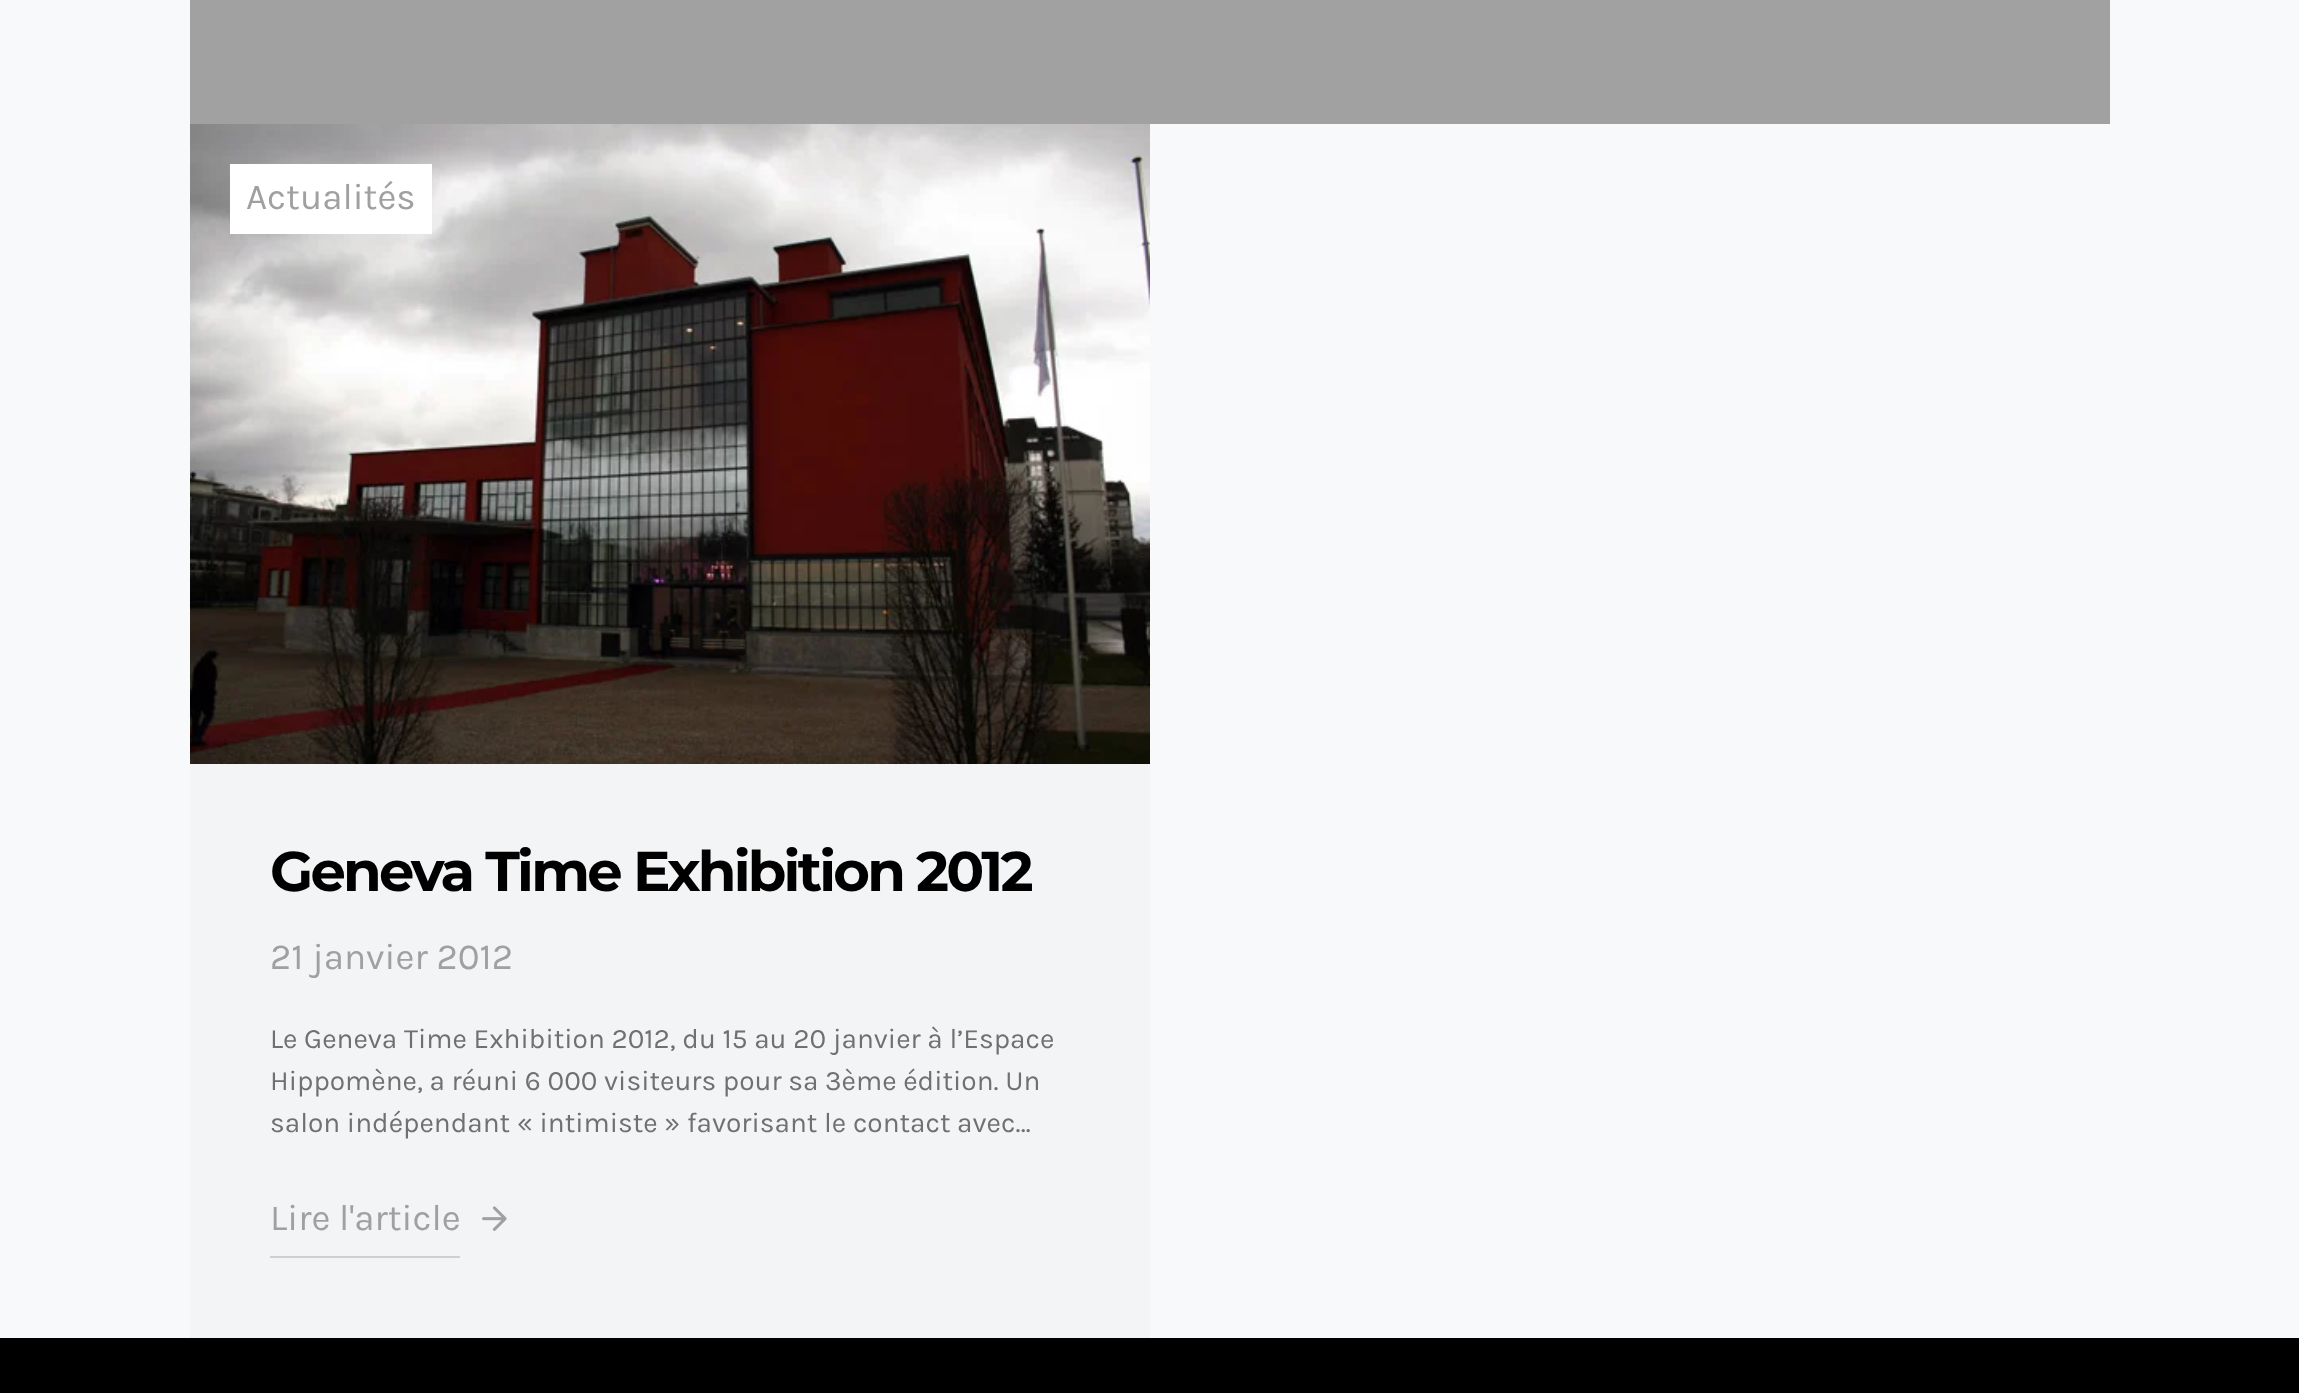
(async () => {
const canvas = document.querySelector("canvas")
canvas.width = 2299
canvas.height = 1393
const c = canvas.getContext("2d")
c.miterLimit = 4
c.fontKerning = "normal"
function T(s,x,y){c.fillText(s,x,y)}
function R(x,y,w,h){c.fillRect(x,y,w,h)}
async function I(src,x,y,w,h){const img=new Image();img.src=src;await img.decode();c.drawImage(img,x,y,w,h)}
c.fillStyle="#f8f9fa"
R(0,0,2299,1393)
c.fillStyle="#a1a1a2"
R(190,0,1920,124)
c.fillStyle="#f2f4f5"
R(190,764,960,574)
await I("1.png",190,124,960,640)
c.fillStyle="#fff"
R(230,164,202,70)
c.font="36.75px Karla"
c.fillStyle="#a0a0a0"
T("Actualités",246,209)
c.letterSpacing="-2.8px"
c.font="100 56px Montserrat"
c.fillStyle="#000"
T("Geneva Time Exhibition 2012",270,891)
c.letterSpacing="0px"
c.font="36.75px Karla"
c.fillStyle="#a0a0a0"
T("21 janvier 2012",270,969)
c.font="28px Karla"
c.fillStyle="#707070"
T("Le Geneva Time Exhibition 2012, du 15 au 20 janvier à l’Espace",270,1048)
T("Hippomène, a réuni 6 000 visiteurs pour sa 3ème édition. Un",270,1090)
T("salon indépendant « intimiste » favorisant le contact avec…",270,1132)
c.fillStyle="#cecfd0"
R(270,1256,190,2)
c.font="36.75px Karla"
c.fillStyle="#a0a0a0"
T("Lire l'article",270,1230)
await I("2.png",482,1206,25,25)
c.fillStyle="#000"
R(0,1338,2299,55)
})()
